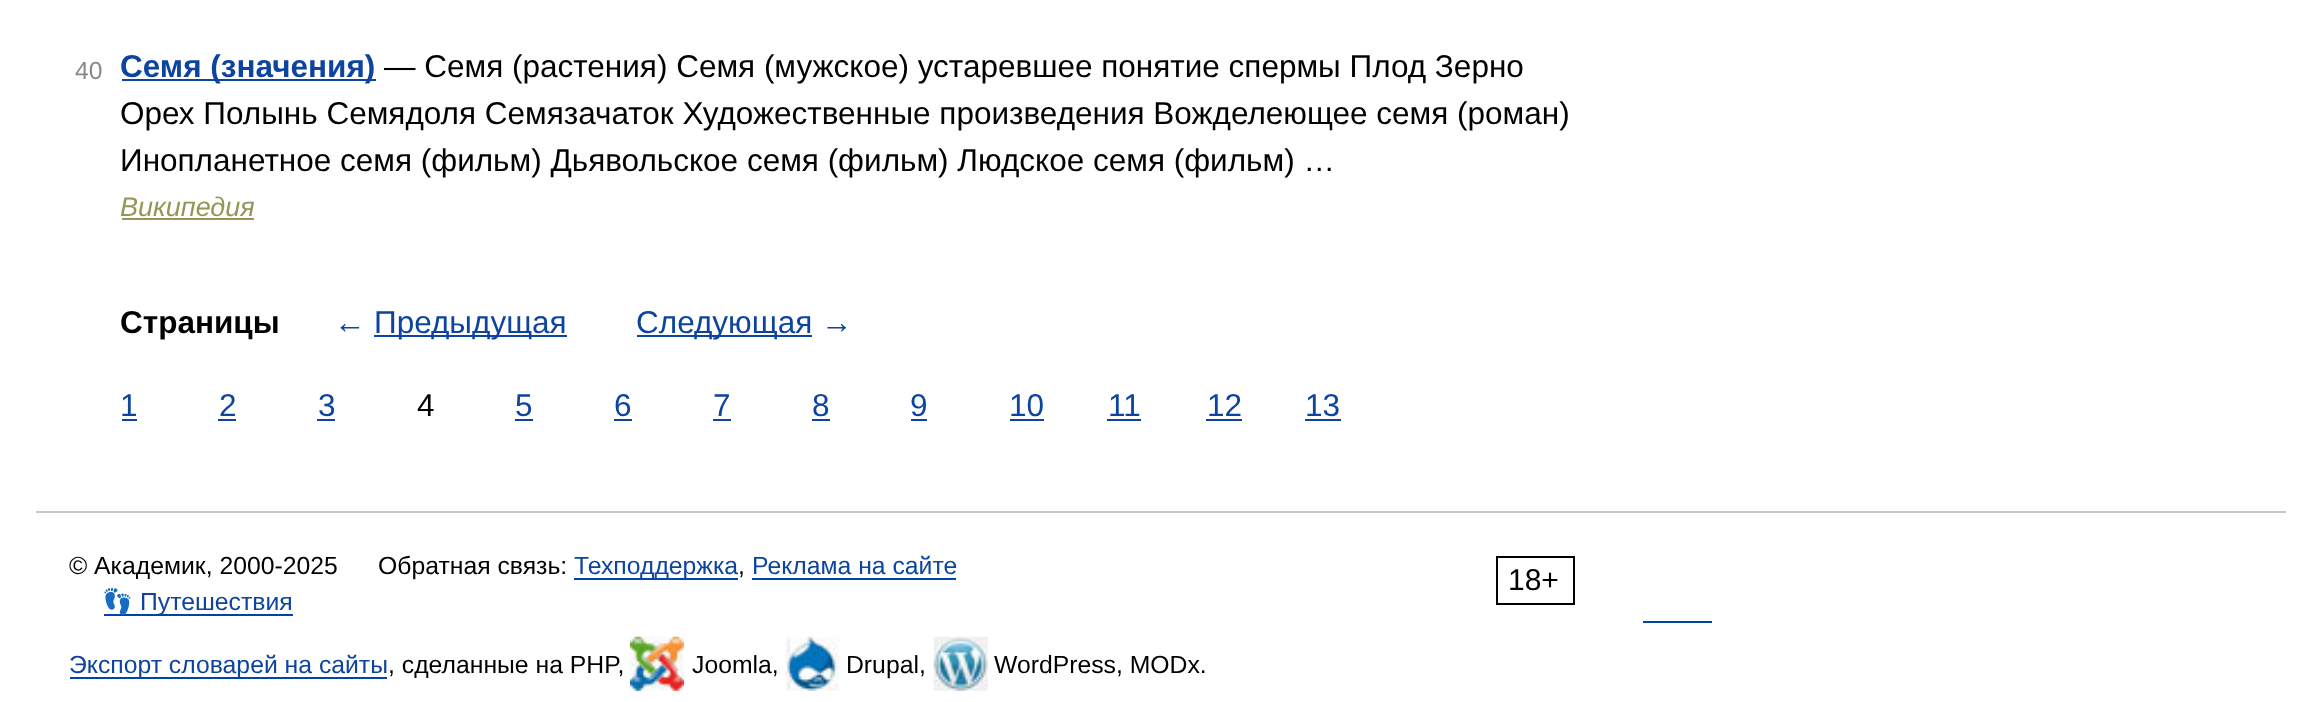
(async () => {
const canvas = document.querySelector("canvas")
canvas.width = 2318
canvas.height = 702
const c = canvas.getContext("2d")
c.miterLimit = 4
c.fontKerning = "normal"
function T(s,x,y){c.fillText(s,x,y)}
function R(x,y,w,h){c.fillRect(x,y,w,h)}
async function I(src,x,y,w,h){const img=new Image();img.src=src;await img.decode();c.drawImage(img,x,y,w,h)}
c.fillStyle="#fff"
R(0,0,2318,702)
c.font="24.75px Liberation Sans"
c.fillStyle="#898989"
T("40",75,79)
c.fillStyle="#0d44a0"
R(122,79,254,2)
c.font="bold 31.5px Liberation Sans"
T("Семя (значения)",120,77)
c.font="31.5px Liberation Sans"
c.fillStyle="#000"
T("— Семя (растения) Семя (мужское) устаревшее понятие спермы Плод Зерно",384,77)
T("Орех Полынь Семядоля Семязачаток Художественные произведения Вожделеющее семя (роман)",120,124)
T("Инопланетное семя (фильм) Дьявольское семя (фильм) Людское семя (фильм) …",120,171)
c.font="italic 27px Liberation Sans"
c.fillStyle="#939756"
T("Википедия",120,216)
R(122,218,132,2)
c.font="bold 31.5px Liberation Sans"
c.fillStyle="#000"
T("Страницы",120,333)
c.font="31.5px Liberation Sans"
c.fillStyle="#0d44a0"
T("←",334,333)
R(374,335,193,2)
T("Предыдущая",374,333)
R(637,335,175,2)
T("Следующая →",636,333)
T("1",120,416)
R(122,419,15,2)
T("2",219,416)
R(218,419,18,2)
T("3",318,416)
R(317,419,18,2)
c.fillStyle="#000"
T("4",417,416)
c.fillStyle="#0d44a0"
T("5",515,416)
R(515,419,18,2)
T("6",614,416)
R(614,419,18,2)
T("7",713,416)
R(713,419,18,2)
T("8",812,416)
R(812,419,18,2)
T("9",910,416)
R(911,419,16,2)
T("10",1009,416)
R(1010,419,34,2)
T("11",1108,416)
R(1107,419,34,2)
T("12",1207,416)
R(1206,419,36,2)
T("13",1305,416)
R(1305,419,36,2)
c.fillStyle="#c7c7c7"
R(36,511,2250,2)
c.font="24.75px Liberation Sans"
c.fillStyle="#000"
T("© Академик, 2000-2025",69,574)
T("Обратная связь:",378,574)
c.fillStyle="#04a"
R(574,578,164,2)
c.fillStyle="#0d44a0"
T("Техподдержка",574,574)
c.fillStyle="#000"
T(",",738,574)
c.fillStyle="#04a"
R(752,578,204,2)
c.fillStyle="#0d44a0"
T("Реклама на сайте",752,574)
c.strokeStyle="#000"
c.lineWidth=2
c.strokeRect(1497,557,77,47)
c.font="30px Liberation Sans"
c.fillStyle="#000"
T("18+",1508,590)
c.fillStyle="#04a"
R(104,614,189,2)
c.font="24.75px Noto Color Emoji"
c.fillStyle="#0d44a0"
T("👣",102,610)
c.font="24.75px Liberation Sans"
T("Путешествия",140,610)
c.fillStyle="#04a"
R(1643,621,69,2)
R(70,677,317,2)
c.fillStyle="#0d44a0"
T("Экспорт словарей на сайты",69,673)
c.fillStyle="#000"
T(", сделанные на PHP,",388,673)
await I("1.png",630,636,54,55)
T("Joomla,",692,673)
await I("2.png",785,636,55,55)
T("Drupal,",846,673)
await I("3.png",933,636,55,55)
T("WordPress, MODx.",994,673)
})()
